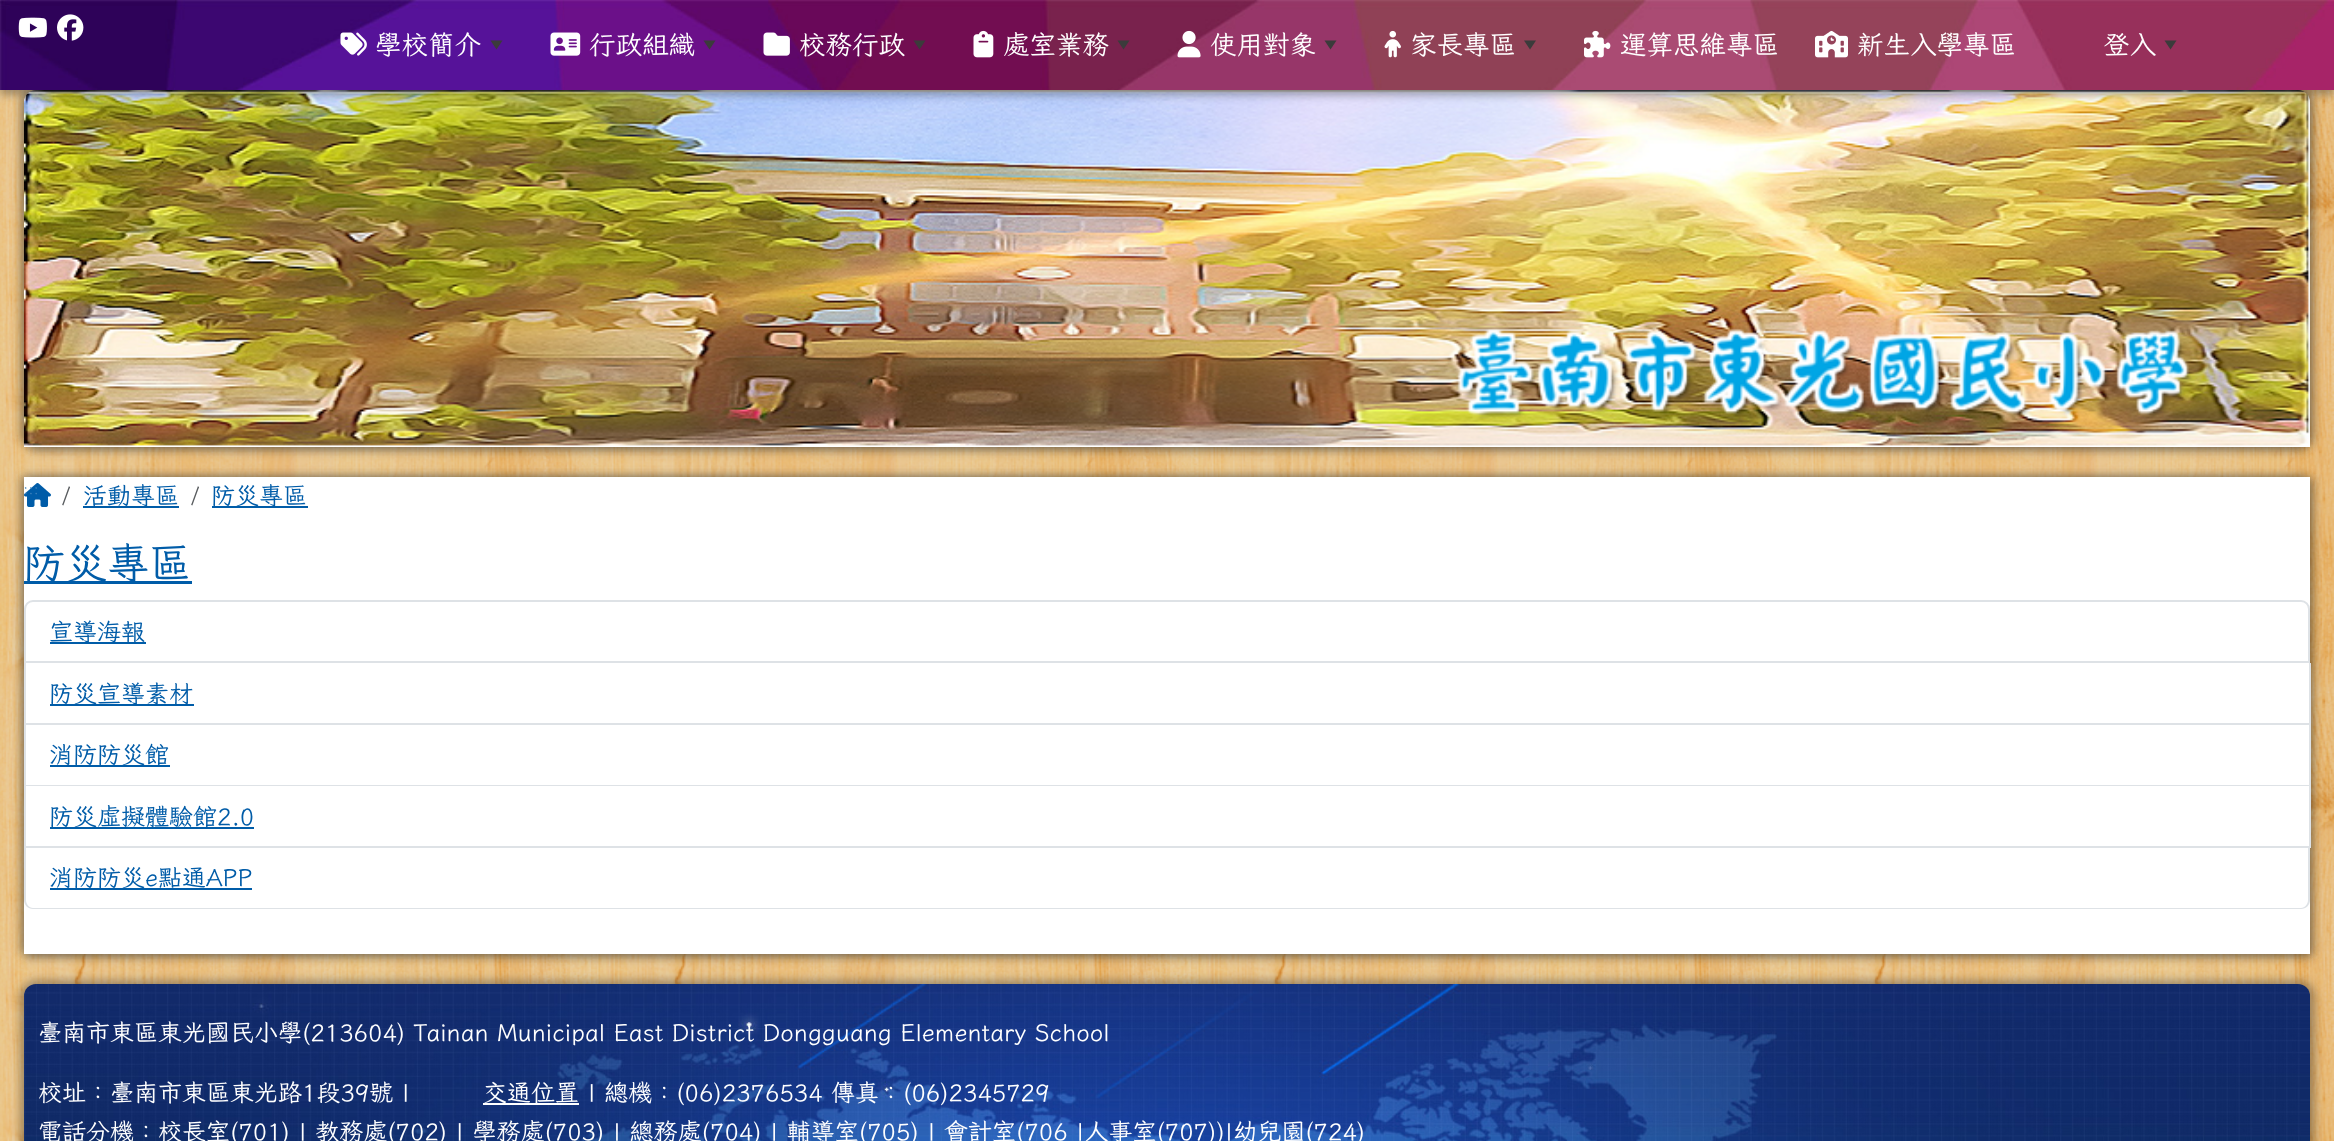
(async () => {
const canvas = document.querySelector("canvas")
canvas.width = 2334
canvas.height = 1141
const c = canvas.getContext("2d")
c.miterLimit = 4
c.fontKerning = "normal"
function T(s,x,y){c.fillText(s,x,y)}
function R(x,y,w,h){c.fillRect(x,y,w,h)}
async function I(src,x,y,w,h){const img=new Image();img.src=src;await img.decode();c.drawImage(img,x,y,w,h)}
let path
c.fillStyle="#fff"
R(0,0,2334,1141)
await I("1.png",0,90,2334,1051)
c.fillStyle="#32323233"
c.filter="blur(4px)"
c.beginPath()
c.roundRect(29,90,2286,357,12)
c.fill()
c.filter="none"
c.filter="blur(4px)"
c.beginPath()
c.roundRect(27,93,2286,357,12)
c.fill()
c.filter="none"
c.filter="blur(4px)"
c.beginPath()
c.roundRect(24,95,2286,357,12)
c.fill()
c.filter="none"
c.filter="blur(4px)"
c.beginPath()
c.roundRect(21,87,2286,357,12)
c.fill()
c.filter="none"
c.filter="blur(4px)"
c.beginPath()
c.roundRect(20,90,2286,357,12)
c.fill()
c.filter="none"
await I("13.png",24,90,2286,357)
c.fillStyle="#32323266"
c.filter="blur(4px)"
c.beginPath()
c.rect(0,5,2334,90)
c.fill()
c.filter="none"
await I("2.png",0,0,2334,90)
await I("3.png",18,17,29,21)
await I("4.png",57,14,27,27)
await I("5.png",340,32,27,24)
c.font="26.5px 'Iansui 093'"
c.fillStyle="#fff"
T("學校簡介",375,54)
c.fillStyle="#3b3b3b"
path = new Path2D("M490.5 40.5h12l-6 9z")
c.fill(path)
await I("6.png",550,32,31,24)
c.fillStyle="#fff"
T("行政組織",589,54)
c.fillStyle="#3b3b3b"
path = new Path2D("M703.5 40.5h12l-6 9z")
c.fill(path)
await I("7.png",763,32,27,24)
c.fillStyle="#fff"
T("校務行政",799,54)
c.fillStyle="#3b3b3b"
path = new Path2D("M913.5 40.5h12l-6 9z")
c.fill(path)
await I("8.png",973,30,21,28)
c.fillStyle="#fff"
T("處室業務",1003,54)
c.fillStyle="#3b3b3b"
path = new Path2D("M1117.5 40.5h12l-6 9z")
c.fill(path)
await I("9.png",1177,30,24,28)
c.fillStyle="#fff"
T("使用對象",1210,54)
c.fillStyle="#3b3b3b"
path = new Path2D("M1324.5 40.5h12l-6 9z")
c.fill(path)
await I("10.png",1384,30,17,28)
c.fillStyle="#fff"
T("家長專區",1410,54)
c.fillStyle="#3b3b3b"
path = new Path2D("M1524 40.5h12l-6 9z")
c.fill(path)
await I("11.png",1584,30,27,28)
c.fillStyle="#fff"
T("運算思維專區",1620,54)
await I("12.png",1815,30,33,28)
T("新生入學專區",1857,54)
T("登入",2103,54)
c.fillStyle="#3b3b3b"
path = new Path2D("M2164.5 40.5h12l-6 9z")
c.fill(path)
c.fillStyle="#32323233"
c.filter="blur(4px)"
c.beginPath()
c.rect(29,477,2286,477)
c.fill()
c.filter="none"
c.filter="blur(4px)"
c.beginPath()
c.rect(27,480,2286,477)
c.fill()
c.filter="none"
c.filter="blur(4px)"
c.beginPath()
c.rect(24,482,2286,477)
c.fill()
c.filter="none"
c.filter="blur(4px)"
c.beginPath()
c.rect(21,474,2286,477)
c.fill()
c.filter="none"
c.filter="blur(4px)"
c.beginPath()
c.rect(20,477,2286,477)
c.fill()
c.filter="none"
c.fillStyle="#fff"
R(24,477,2286,477)
await I("14.png",24,483,27,24)
c.font="24px 'Iansui 093'"
c.fillStyle="#595c5f"
T("/",62,504)
c.fillStyle="#005ca8"
R(83,506,96,2)
T("活動專區",83,504)
c.fillStyle="#595c5f"
T("/",191,504)
c.fillStyle="#005ca8"
R(212,506,96,2)
T("防災專區",211,504)
R(24,581,168,3)
c.font="42px 'Iansui 093'"
T("防災專區",23,578)
c.beginPath()
c.roundRect(25,601,2284,61,[8,8,0,0])
c.strokeStyle="#dee2e6"
c.lineWidth=2
c.stroke()
R(50,642,96,2)
c.font="24px 'Iansui 093'"
T("宣導海報",49,640)
c.fillStyle="#dee2e6"
R(2309,663,2,185)
R(24,723,2286,2)
R(24,663,2,62)
c.fillStyle="#005ca8"
R(50,704,144,2)
T("防災宣導素材",49,702)
c.fillStyle="#dee2e6"
R(24,785,2286,1)
R(24,725,2,61)
c.fillStyle="#005ca8"
R(50,765,120,2)
T("消防防災館",49,763)
c.fillStyle="#dee2e6"
R(24,846,2286,2)
R(24,786,2,62)
c.fillStyle="#005ca8"
R(50,827,204,2)
T("防災虛擬體驗館2.0",49,825)
c.fillStyle="#dee2e6"
path = new Path2D("M24 848h2286v52c0 5-4 9-9 9h-2268c-5 0-9-4-9-9zm2 0h2282v52c0 4-3 8-7 8h-2268c-4 0-7-4-7-8z")
c.fill(path,"evenodd")
c.fillStyle="#005ca8"
R(50,888,202,2)
T("消防防災e點通APP",49,886)
c.font="15px 'Iansui 093'"
c.fillStyle="#3d83bd"
T(":::",23,494)
c.fillStyle="#32323266"
c.filter="blur(4.5px)"
c.beginPath()
c.roundRect(20,980,2295,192,17)
c.fill()
c.filter="none"
await I("15.png",24,984,2286,157)
c.font="24px 'Iansui 093'"
c.fillStyle="#fff"
T("臺南市東區東光國民小學(213604) Tainan Municipal East District Dongguang Elementary School",38,1041)
T("校址：臺南市東區東光路1段39號 |",38,1101)
R(483,1103,96,2)
T("交通位置 | 總機：(06)2376534 傳真：(06)2345729",483,1101)
T("電話分機：校長室(701) | 教務處(702) | 學務處(703) | 總務處(704) | 輔導室(705) | 會計室(706 |人事室(707))|幼兒園(724)",38,1140)
})()
